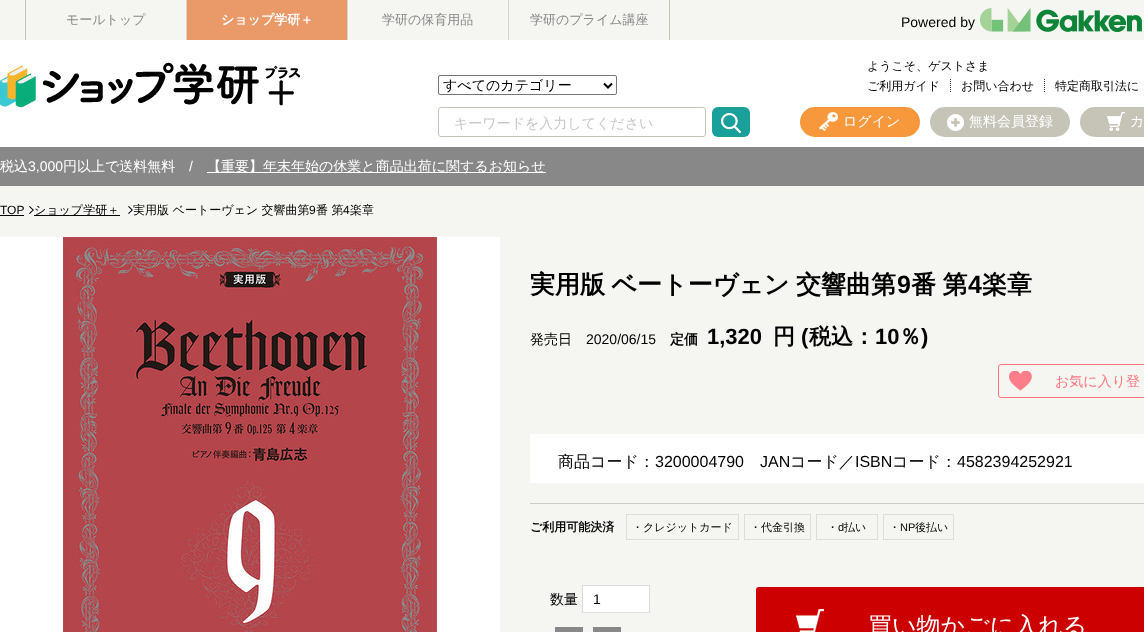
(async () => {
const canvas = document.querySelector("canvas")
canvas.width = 1144
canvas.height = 632
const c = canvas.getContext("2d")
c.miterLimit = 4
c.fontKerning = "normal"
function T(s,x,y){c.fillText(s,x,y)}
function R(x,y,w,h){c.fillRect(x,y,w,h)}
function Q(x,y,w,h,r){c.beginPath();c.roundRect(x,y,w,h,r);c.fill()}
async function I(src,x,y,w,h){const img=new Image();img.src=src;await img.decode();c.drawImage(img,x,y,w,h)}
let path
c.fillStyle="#f5f5f1"
R(0,0,1144,632)
c.fillStyle="#fff"
R(0,40,1144,107)
c.fillStyle="#c6c4b7"
R(669,0,1,40)
R(25,0,1,40)
c.fillStyle="#d9d6c7"
R(186,0,1,40)
c.font="500 13px WenQuanYi Zen Hei"
c.fillStyle="#888"
T("モールトップ",66,24)
c.fillStyle="#ea9968"
R(187,0,160,40)
c.fillStyle="#d9d6c7"
R(347,0,1,40)
c.font="bold 13px WenQuanYi Zen Hei"
c.fillStyle="#fff"
T("ショップ学研＋",221,24)
c.fillStyle="#d9d6c7"
R(508,0,1,40)
c.font="500 13px WenQuanYi Zen Hei"
c.fillStyle="#888"
T("学研の保育用品",382,24)
T("学研のプライム講座",530,24)
c.font="14px Liberation Sans"
c.fillStyle="#000"
T("Powered by",901,27)
await I("1.png",980,8,162,24)
await I("2.png",0,62,300,46)
c.beginPath()
c.roundRect(438.5,75.5,178,19,1.5)
c.strokeStyle="#767676"
c.stroke()
path = new Path2D("M604 83.5l4 4l4-4")
c.strokeStyle="#000"
c.lineWidth=2
c.stroke(path)
c.font="500 14px WenQuanYi Zen Hei"
T("すべてのカテゴリー",443,90)
c.beginPath()
c.roundRect(438.5,107.5,267,29,2.5)
c.strokeStyle="#c6c4b7"
c.lineWidth=1
c.stroke()
c.fillStyle="#c7c7c7"
T("キーワードを入力してください",454,128)
c.fillStyle="#1aa09b"
Q(712,107,38,30,6)
await I("3.png",721,113,20,20)
c.font="500 12px WenQuanYi Zen Hei"
c.fillStyle="#000"
T("ようこそ、ゲストさま",867,70)
T("ご利用ガイド",867,90)
await I("4.png",950,79,1,13)
T("お問い合わせ",961,90)
await I("4.png",1044,79,1,13)
T("特定商取引法に",1055,90)
c.fillStyle="#f7983c"
Q(800,107,120,30,15)
await I("5.png",819,112,19,19)
c.font="500 14px WenQuanYi Zen Hei"
c.fillStyle="#fff"
T("ログイン",843,126)
c.fillStyle="#c6c4b7"
Q(930,107,140,30,15)
await I("6.png",947,114,17,17)
c.fillStyle="#fff"
T("無料会員登録",969,126)
c.fillStyle="#c6c4b7"
Q(1080,107,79,30,15)
await I("7.png",1107,112,18,19)
c.fillStyle="#fff"
T("カ",1130,126)
c.fillStyle="#888"
R(0,147,1144,39)
c.fillStyle="#fff"
T("税込",0,171)
c.font="14px Liberation Sans"
T("3,000",28,171)
c.font="500 14px WenQuanYi Zen Hei"
T("円以上で送料無料",63,171)
c.font="14px Liberation Sans"
T("/",189,171)
R(207,172,339,1)
c.font="500 14px WenQuanYi Zen Hei"
T("【重要】年末年始の休業と商品出荷に関するお知らせ",207,171)
c.font="12px Liberation Sans"
c.fillStyle="#000"
T("TOP",0,214)
R(0,215,24,1)
await I("8.png",29,206,5,8)
R(34,215,86,1)
c.font="500 12px WenQuanYi Zen Hei"
T("ショップ学研＋",34,214)
await I("8.png",128,206,5,8)
T("実用版 ベートーヴェン 交響曲第",133,214)
c.font="12px Liberation Sans"
T("9",309,214)
c.font="500 12px WenQuanYi Zen Hei"
T("番 第",316,214)
c.font="12px Liberation Sans"
T("4",343,214)
c.font="500 12px WenQuanYi Zen Hei"
T("楽章",350,214)
c.fillStyle="#fff"
R(0,237,500,395)
await I("9.png",63,237,376,395)
c.wordSpacing="-1px"
c.font="bold 25px WenQuanYi Zen Hei"
c.fillStyle="#000"
T("実用版 ベートーヴェン 交響曲第",530,293)
c.wordSpacing="0px"
c.font="bold 25px Liberation Sans"
T("9",897,293)
c.wordSpacing="-1px"
c.font="bold 25px WenQuanYi Zen Hei"
T("番 第",911,293)
c.wordSpacing="0px"
c.font="bold 25px Liberation Sans"
T("4",968,293)
c.font="bold 25px WenQuanYi Zen Hei"
T("楽章",982,293)
c.font="500 14px WenQuanYi Zen Hei"
T("発売日",530,344)
c.font="14px Liberation Sans"
T("2020/06/15",586,344)
c.font="bold 14px WenQuanYi Zen Hei"
T("定価",670,344)
c.font="bold 22px Liberation Sans"
T("1,320",707,344)
c.font="bold 22px WenQuanYi Zen Hei"
T("円",773,344)
c.font="bold 22px Liberation Sans"
T("(",801,344)
c.font="bold 22px WenQuanYi Zen Hei"
T("税込：",809,344)
c.font="bold 22px Liberation Sans"
T("10",875,344)
c.font="bold 22px WenQuanYi Zen Hei"
T("％",899,344)
c.font="bold 22px Liberation Sans"
T(")",921,344)
c.beginPath()
c.roundRect(998.5,364.5,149,33,2.5)
c.strokeStyle="#ff737e"
c.stroke()
await I("10.png",1009,371,23,20)
c.font="500 14px WenQuanYi Zen Hei"
c.fillStyle="#ff737e"
T("お気に入り登",1055,386)
c.fillStyle="#fff"
R(530,434,614,49)
c.font="500 16px WenQuanYi Zen Hei"
c.fillStyle="#000"
T("商品コード：",558,467)
c.font="16px Liberation Sans"
T("3200004790",655,467)
T("JAN",760,467)
c.font="500 16px WenQuanYi Zen Hei"
T("コード／",790,467)
c.font="16px Liberation Sans"
T("ISBN",855,467)
c.font="500 16px WenQuanYi Zen Hei"
T("コード：",892,467)
c.font="16px Liberation Sans"
T("4582394252921",957,467)
c.fillStyle="#ccc"
R(530,503,614,1)
c.font="bold 12px WenQuanYi Zen Hei"
c.fillStyle="#000"
T("ご利用可能決済",530,531)
c.strokeStyle="#ddd"
c.strokeRect(626.5,514.5,112,25)
c.font="500 11px WenQuanYi Zen Hei"
T("・クレジットカード",632,531)
c.strokeRect(744.5,514.5,66,25)
T("・代金引換",750,531)
c.strokeRect(816.5,514.5,61,25)
T("・",827,531)
c.font="11px Liberation Sans"
T("d",838,531)
c.font="500 11px WenQuanYi Zen Hei"
T("払い",844,531)
c.strokeRect(883.5,514.5,70,25)
T("・",889,531)
c.font="11px Liberation Sans"
T("NP",900,531)
c.font="500 11px WenQuanYi Zen Hei"
T("後払い",915,531)
c.font="500 14px WenQuanYi Zen Hei"
T("数量",550,604)
c.fillStyle="#fff"
c.beginPath()
c.rect(582.5,585.5,67,27)
c.fill()
c.strokeStyle="#dcdcdc"
c.stroke()
c.font="14px Liberation Sans"
c.fillStyle="#000"
T("1",593,604)
c.fillStyle="#888"
R(555,627,28,5)
R(593,627,28,5)
c.fillStyle="#cd0000"
Q(756,587,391,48,3)
await I("11.png",796,609,28,23)
c.font="500 24px WenQuanYi Zen Hei"
c.fillStyle="#fff"
T("買い物かごに入れる",868,634)
})()
